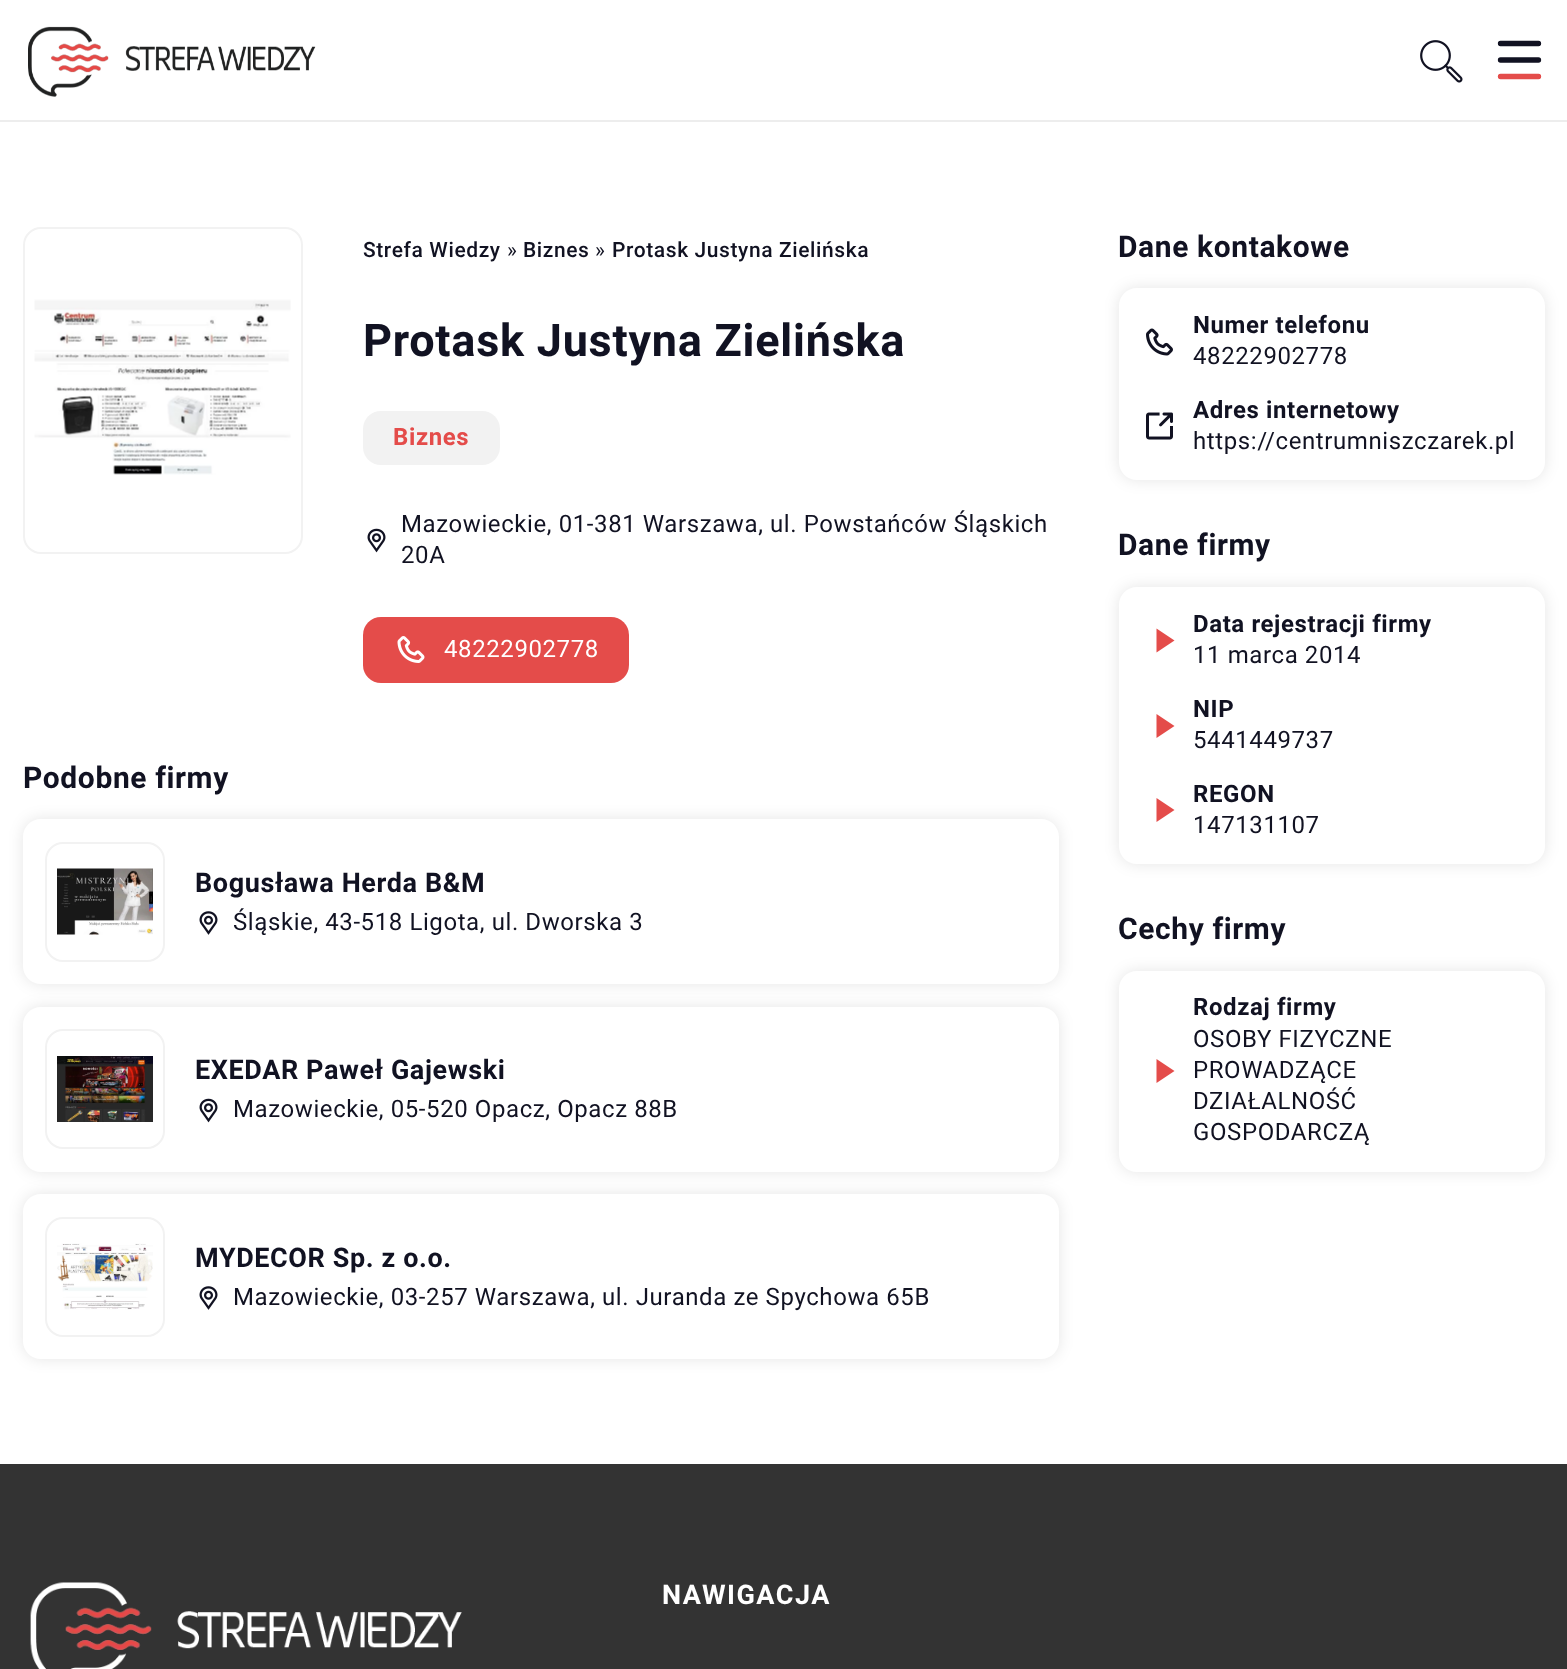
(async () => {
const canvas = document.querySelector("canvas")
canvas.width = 1567
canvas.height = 1669
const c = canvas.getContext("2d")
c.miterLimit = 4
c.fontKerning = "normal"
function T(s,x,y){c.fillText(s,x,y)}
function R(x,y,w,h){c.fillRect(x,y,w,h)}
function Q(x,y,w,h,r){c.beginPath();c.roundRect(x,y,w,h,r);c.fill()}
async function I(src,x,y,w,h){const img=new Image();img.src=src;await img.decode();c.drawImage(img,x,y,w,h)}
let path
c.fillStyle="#fff"
R(0,0,1567,1669)
c.fillStyle="#ededed"
R(0,120,1567,2)
await I("1.png",28,26,288,71)
await I("2.png",1420,40,43,43)
path = new Path2D("M1500.5 43.5h38m-38 16.5h38")
c.strokeStyle="#111222"
c.lineWidth=5.3
c.lineCap="round"
c.stroke(path)
path = new Path2D("M1538.5 76.5h-38")
c.strokeStyle="#e44c4a"
c.stroke(path)
c.beginPath()
c.roundRect(24,228,278,325,17)
c.strokeStyle="#f2f2f2"
c.lineWidth=2
c.stroke()
await I("3.png",34,299,257,176)
c.letterSpacing="0.6px"
c.font="500 21px Roboto"
c.fillStyle="#111222"
T("Strefa Wiedzy",363,257)
c.font="21px Roboto"
T("»",507,257)
c.font="500 21px Roboto"
T("Biznes",523,257)
c.font="21px Roboto"
T("»",595,257)
c.font="500 21px Roboto"
T("Protask Justyna Zielińska",612,257)
c.letterSpacing="0.75px"
c.font="bold 45px Roboto"
T("Protask Justyna Zielińska",363,356)
c.fillStyle="#f2f2f2"
Q(363,411,137,54,18)
c.letterSpacing="0.6px"
c.font="bold 24px Roboto"
c.fillStyle="#e44c4a"
T("Biznes",393,445)
c.font="24px Roboto"
c.fillStyle="#111222"
T("Mazowieckie, 01-381 Warszawa, ul. Powstańców Śląskich",401,532)
await I("4.png",367,528,19,25)
T("20A",401,563)
c.fillStyle="#e44c4a"
Q(363,617,266,66,18)
await I("5.png",397,636,28,27)
c.fillStyle="#fff"
T("48222902778",444,657)
c.font="bold 30px Roboto"
c.fillStyle="#111222"
T("Podobne firmy",23,788)
c.save()
path = new Path2D("M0 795h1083v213h-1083zm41 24h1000c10 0 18 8 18 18v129c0 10-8 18-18 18h-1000c-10 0-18-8-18-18v-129c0-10 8-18 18-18z")
c.clip(path,"evenodd")
c.fillStyle="#0000001a"
c.filter="blur(7.5px)"
c.beginPath()
c.roundRect(23,819,1036,165,18)
c.fill()
c.filter="none"
c.restore()
c.beginPath()
c.roundRect(46,843,118,118,17)
c.stroke()
await I("6.png",57,868,96,67)
c.font="bold 27px Roboto"
T("Bogusława Herda B&M",195,892)
await I("7.png",199,911,19,24)
c.font="24px Roboto"
T("Śląskie, 43-518 Ligota, ul. Dworska 3",233,930)
c.save()
path = new Path2D("M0 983h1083v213h-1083zm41 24h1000c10 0 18 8 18 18v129c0 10-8 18-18 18h-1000c-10 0-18-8-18-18v-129c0-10 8-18 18-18z")
c.clip(path,"evenodd")
c.fillStyle="#0000001a"
c.filter="blur(7.5px)"
c.beginPath()
c.roundRect(23,1007,1036,165,18)
c.fill()
c.filter="none"
c.restore()
c.beginPath()
c.roundRect(46,1030,118,118,17)
c.stroke()
await I("8.png",57,1056,96,66)
c.font="bold 27px Roboto"
T("EXEDAR Paweł Gajewski",195,1079)
await I("4.png",199,1098,19,25)
c.font="24px Roboto"
T("Mazowieckie, 05-520 Opacz, Opacz 88B",233,1117)
c.save()
path = new Path2D("M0 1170h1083v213h-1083zm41 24h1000c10 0 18 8 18 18v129c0 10-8 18-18 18h-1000c-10 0-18-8-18-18v-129c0-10 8-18 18-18z")
c.clip(path,"evenodd")
c.fillStyle="#0000001a"
c.filter="blur(7.5px)"
c.beginPath()
c.roundRect(23,1194,1036,165,18)
c.fill()
c.filter="none"
c.restore()
c.beginPath()
c.roundRect(46,1218,118,118,17)
c.stroke()
await I("9.png",57,1243,96,67)
c.font="bold 27px Roboto"
T("MYDECOR Sp. z o.o.",195,1267)
await I("7.png",199,1286,19,24)
c.font="24px Roboto"
T("Mazowieckie, 03-257 Warszawa, ul. Juranda ze Spychowa 65B",233,1305)
c.font="bold 30px Roboto"
T("Dane kontakowe",1118,257)
c.save()
path = new Path2D("M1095 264h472v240h-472zm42 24h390c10 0 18 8 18 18v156c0 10-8 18-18 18h-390c-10 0-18-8-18-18v-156c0-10 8-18 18-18z")
c.clip(path,"evenodd")
c.fillStyle="#0000001a"
c.filter="blur(7.5px)"
c.beginPath()
c.roundRect(1119,288,426,192,18)
c.fill()
c.filter="none"
c.restore()
c.font="bold 24px Roboto"
T("Numer telefonu",1193,333)
await I("10.png",1146,328,27,28)
c.font="24px Roboto"
T("48222902778",1193,364)
await I("11.png",1146,412,27,28)
c.font="bold 24px Roboto"
T("Adres internetowy",1193,418)
c.font="24px Roboto"
T("https://centrumniszczarek.pl",1193,449)
c.font="bold 30px Roboto"
T("Dane firmy",1118,555)
c.save()
path = new Path2D("M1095 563h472v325h-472zm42 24h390c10 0 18 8 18 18v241c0 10-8 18-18 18h-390c-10 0-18-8-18-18v-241c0-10 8-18 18-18z")
c.clip(path,"evenodd")
c.fillStyle="#0000001a"
c.filter="blur(7.5px)"
c.beginPath()
c.roundRect(1119,587,426,277,18)
c.fill()
c.filter="none"
c.restore()
c.font="bold 24px Roboto"
T("Data rejestracji firmy",1193,632)
c.fillStyle="#e44c4a"
path = new Path2D("M1156.5 652.5v-24l18 12z")
c.fill(path)
c.font="24px Roboto"
c.fillStyle="#111222"
T("11 marca 2014",1193,663)
c.font="bold 24px Roboto"
T("NIP",1193,717)
c.fillStyle="#e44c4a"
path = new Path2D("M1156.5 738v-24l18 12z")
c.fill(path)
c.font="24px Roboto"
c.fillStyle="#111222"
T("5441449737",1193,748)
c.font="bold 24px Roboto"
T("REGON",1193,802)
c.fillStyle="#e44c4a"
path = new Path2D("M1156.5 822v-24l18 12z")
c.fill(path)
c.font="24px Roboto"
c.fillStyle="#111222"
T("147131107",1193,833)
c.font="bold 30px Roboto"
T("Cechy firmy",1118,939)
c.save()
path = new Path2D("M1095 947h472v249h-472zm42 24h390c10 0 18 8 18 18v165c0 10-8 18-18 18h-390c-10 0-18-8-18-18v-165c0-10 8-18 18-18z")
c.clip(path,"evenodd")
c.fillStyle="#0000001a"
c.filter="blur(7.5px)"
c.beginPath()
c.roundRect(1119,971,426,201,18)
c.fill()
c.filter="none"
c.restore()
c.font="bold 24px Roboto"
T("Rodzaj firmy",1193,1015)
c.fillStyle="#e44c4a"
path = new Path2D("M1156.5 1083v-24l18 12z")
c.fill(path)
c.font="24px Roboto"
c.fillStyle="#111222"
T("OSOBY FIZYCZNE",1193,1047)
T("PROWADZĄCE",1193,1078)
T("DZIAŁALNOŚĆ",1193,1109)
T("GOSPODARCZĄ",1193,1140)
c.fillStyle="#333"
R(0,1464,1567,205)
await I("12.png",30,1582,432,87)
c.letterSpacing="1.5px"
c.font="bold 27px Roboto"
c.fillStyle="#fff"
T("NAWIGACJA",662,1604)
})()
